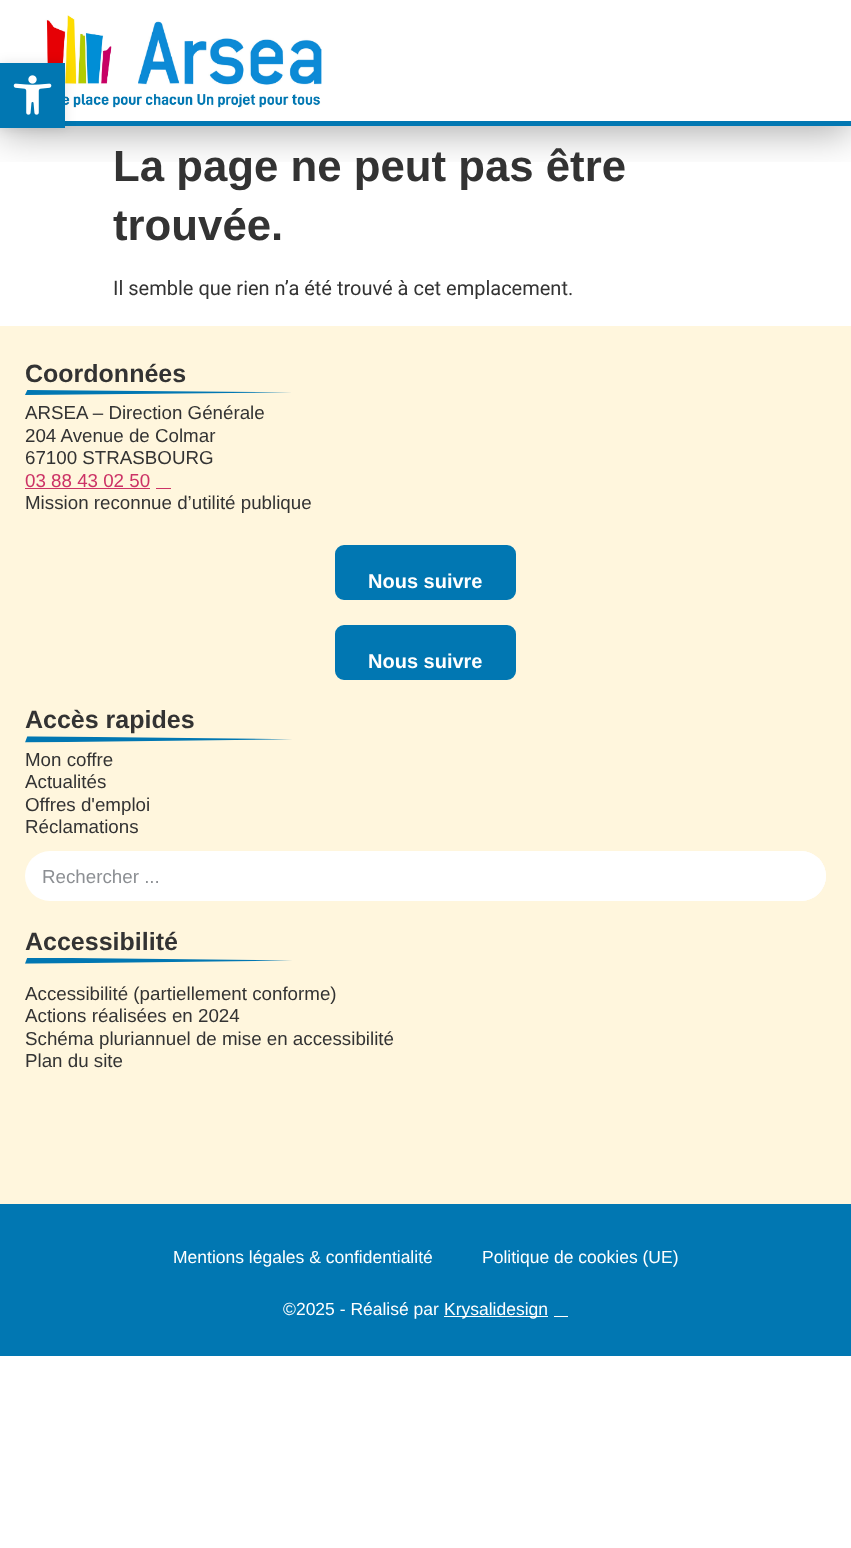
(async () => {
const canvas = document.querySelector("canvas")
canvas.width = 851
canvas.height = 1548
const c = canvas.getContext("2d")
c.miterLimit = 4
c.fontKerning = "normal"
function T(s,x,y){c.fillText(s,x,y)}
function R(x,y,w,h){c.fillRect(x,y,w,h)}
function Q(x,y,w,h,r){c.beginPath();c.roundRect(x,y,w,h,r);c.fill()}
async function I(src,x,y,w,h){const img=new Image();img.src=src;await img.decode();c.drawImage(img,x,y,w,h)}
c.fillStyle="#fff"
R(0,0,851,1548)
c.save()
c.beginPath()
c.rect(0,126,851,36)
c.clip()
c.fillStyle="#00000052"
c.filter="blur(19px)"
c.beginPath()
c.rect(0,6,851,127)
c.fill()
c.filter="none"
c.restore()
c.fillStyle="#0177b2"
R(65,121,786,5)
await I("1.png",44,15,278,93)
c.fillStyle="#0000001a"
c.filter="blur(6px)"
c.beginPath()
c.rect(0,63,65,65)
c.fill()
c.filter="none"
c.fillStyle="#0177b2"
R(0,63,65,65)
await I("2.png",13,75,39,40)
c.font="bold 43.75px Liberation Sans"
c.fillStyle="#333"
T("La page ne peut pas être",113,181)
T("trouvée.",113,240)
c.font="20px Roboto"
T("Il semble que rien n’a été trouvé à cet emplacement.",113,295)
c.fillStyle="#fff6dd"
R(0,326,851,878)
c.font="bold 25px Liberation Sans"
c.fillStyle="#333"
T("Coordonnées",25,382)
await I("3.png",25,390,266,5)
c.font="18.75px Liberation Sans"
T("ARSEA – Direction Générale",25,419)
T("204 Avenue de Colmar",25,442)
T("67100 STRASBOURG",25,464)
c.fillStyle="#c36"
T("03 88 43 02 50",25,487)
R(25,488,125,1)
R(156,488,15,1)
c.fillStyle="#333"
T("Mission reconnue d’utilité publique",25,509)
c.fillStyle="#0177b2"
c.beginPath()
c.roundRect(336.5,546.5,178,52,7.5)
c.fill()
c.strokeStyle="#0177b2"
c.lineWidth=3
c.stroke()
c.font="bold 20px Liberation Sans"
c.fillStyle="#fff"
T("Nous suivre",368,588)
c.fillStyle="#0177b2"
c.beginPath()
c.roundRect(336.5,626.5,178,52,7.5)
c.fill()
c.stroke()
c.fillStyle="#fff"
T("Nous suivre",368,668)
c.font="bold 25px Liberation Sans"
c.fillStyle="#333"
T("Accès rapides",25,728)
await I("4.png",25,736,267,7)
c.font="18.75px Liberation Sans"
T("Mon coffre",25,766)
T("Actualités",25,788)
T("Offres d'emploi",25,811)
T("Réclamations",25,833)
c.fillStyle="#fff"
Q(25,851,801,50,25)
c.fillStyle="#8c8f93"
T("Rechercher ...",42,883)
c.fillStyle="#fff"
c.beginPath()
c.roundRect(776,851,50,50,[0,25,25,0])
c.fill()
c.font="bold 25px Liberation Sans"
c.fillStyle="#333"
T("Accessibilité",25,950)
await I("5.png",25,958,267,6)
c.font="18.75px Liberation Sans"
T("Accessibilité (partiellement conforme)",25,1000)
T("Actions réalisées en 2024",25,1022)
T("Schéma pluriannuel de mise en accessibilité",25,1045)
T("Plan du site",25,1067)
c.fillStyle="#0177b2"
R(0,1204,851,152)
c.font="17.5px Liberation Sans"
c.fillStyle="#fff"
T("Mentions légales & confidentialité",173,1263)
T("Politique de cookies (UE)",482,1263)
T("©2025 - Réalisé par",283,1315)
R(444,1316,104,1)
T("Krysalidesign",444,1315)
R(554,1316,14,1)
})()
